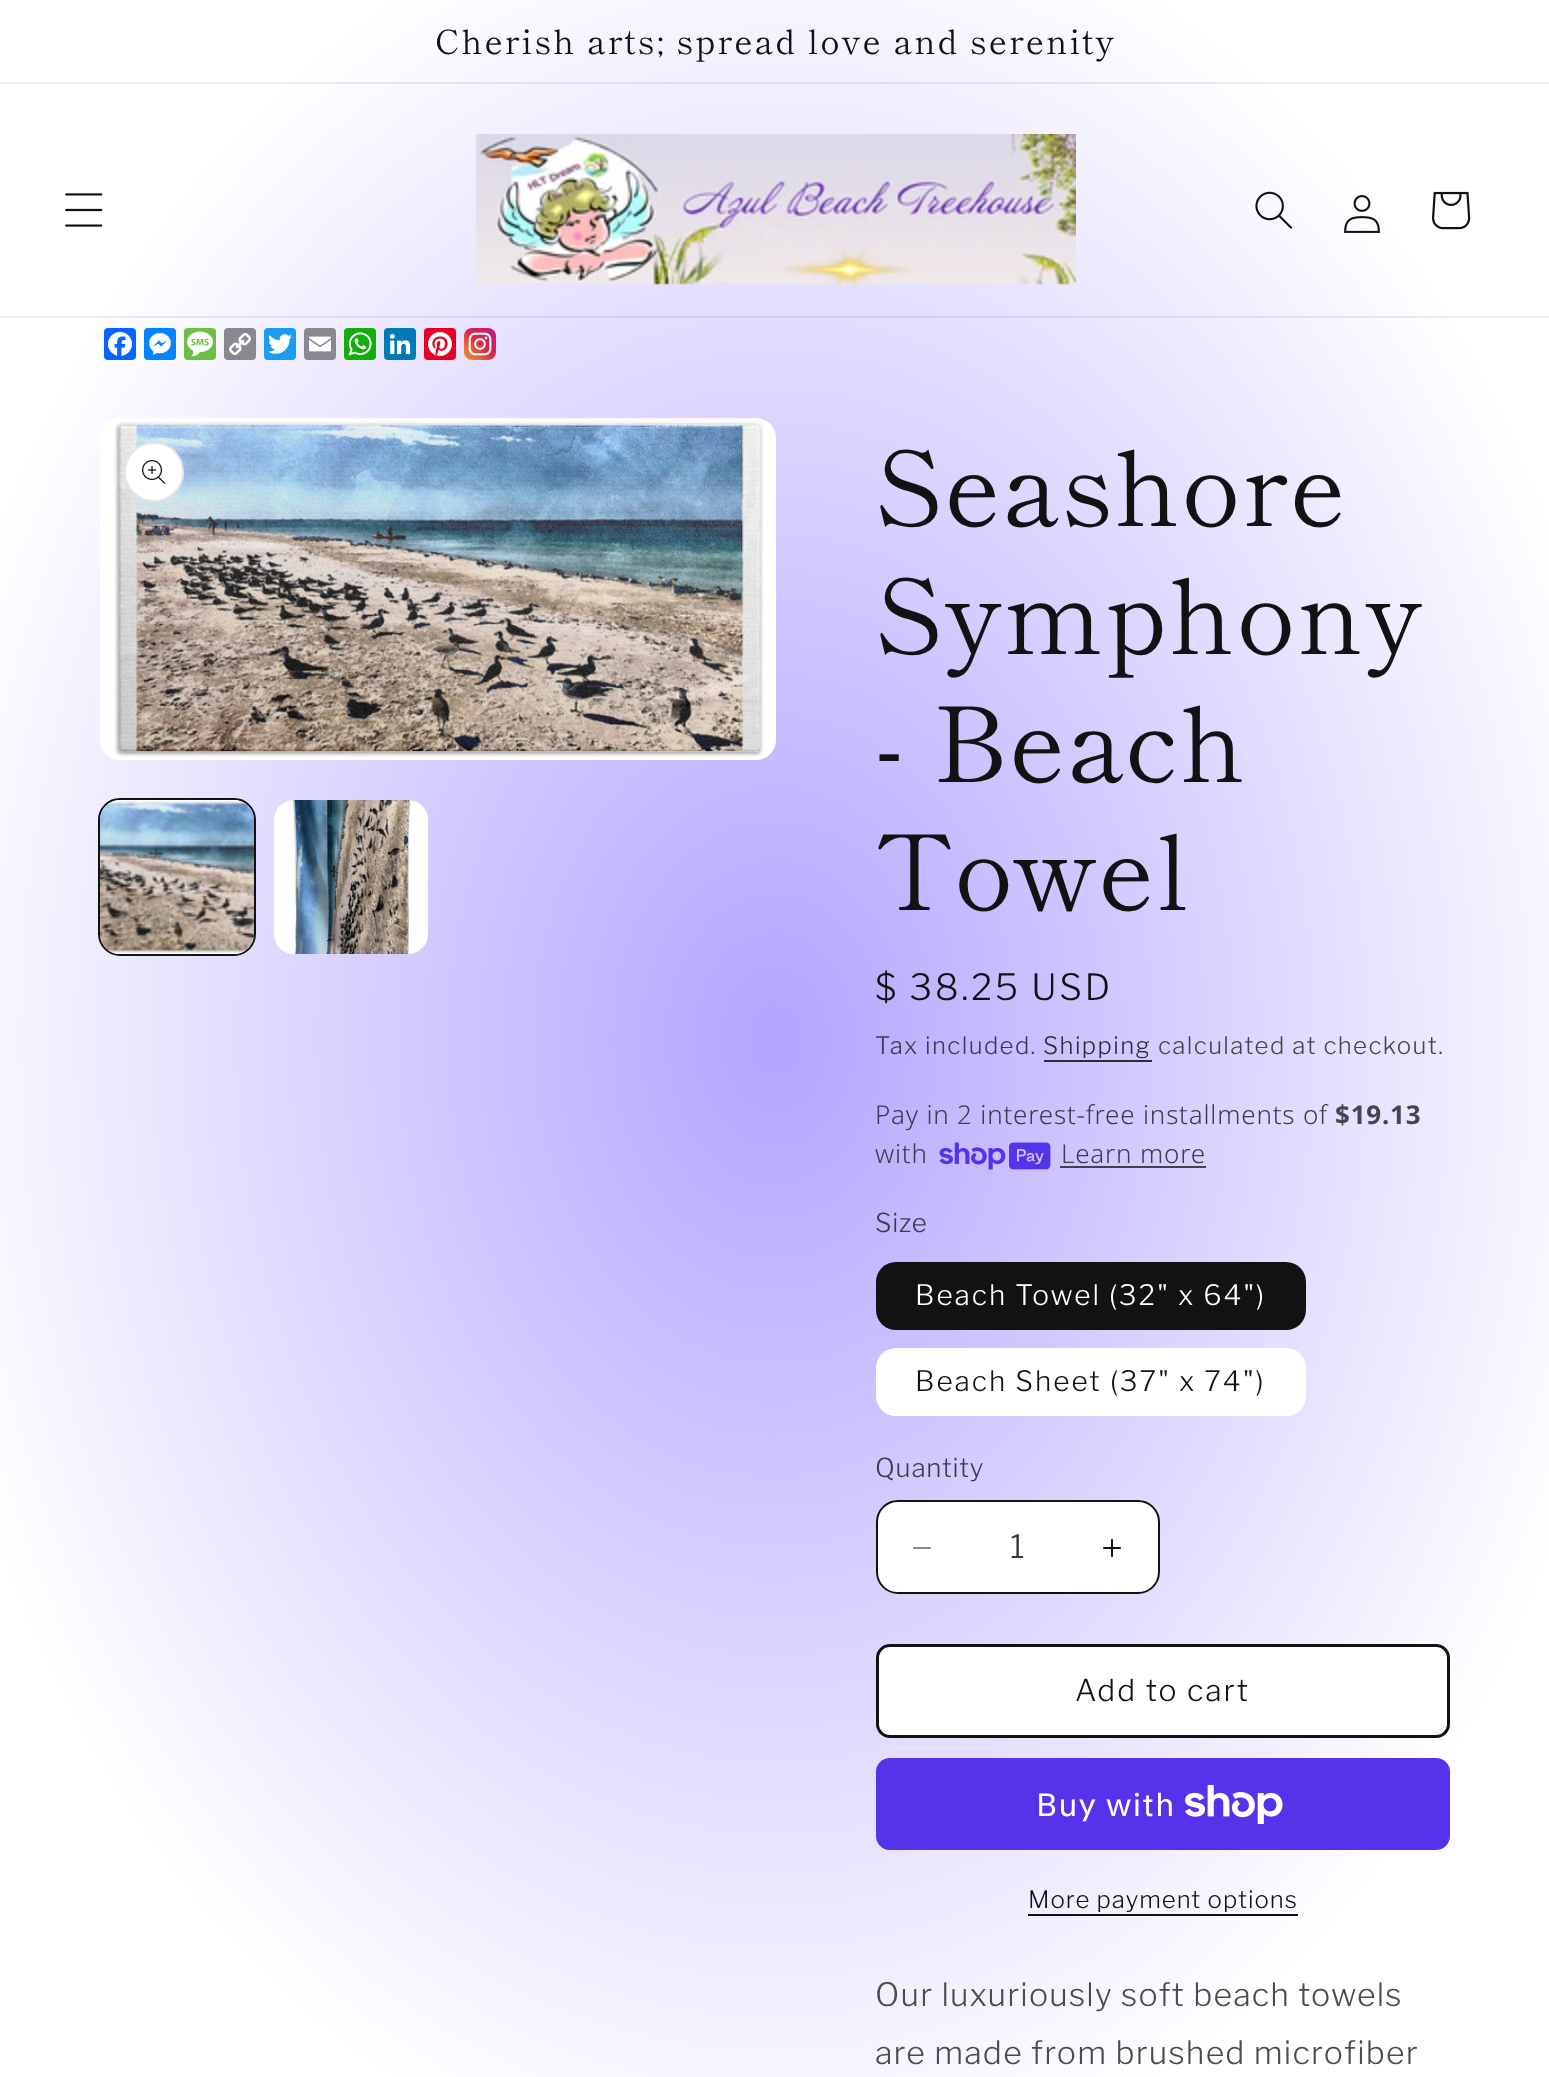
(async () => {
const canvas = document.querySelector("canvas")
canvas.width = 1549
canvas.height = 2077
const c = canvas.getContext("2d")
c.miterLimit = 4
c.fontKerning = "normal"
function T(s,x,y){c.fillText(s,x,y)}
function R(x,y,w,h){c.fillRect(x,y,w,h)}
function Q(x,y,w,h,r){c.beginPath();c.roundRect(x,y,w,h,r);c.fill()}
async function I(src,x,y,w,h){const img=new Image();img.src=src;await img.decode();c.drawImage(img,x,y,w,h)}
let gradient
c.fillStyle="#fff"
R(0,0,1549,2077)
gradient = c.createRadialGradient(775,775.18,0,775,775.18,1096)
gradient.addColorStop(0,"#b3a4ff")
gradient.addColorStop(.79,"#fff")
gradient.addColorStop(.97,"#fff")
c.fillStyle = gradient
c.beginPath()
c.rect(0,0,1549,2077)
c.save()
c.clip()
c.scale(1,1469 / 1096)
c.fillRect(0,0,1549,1550)
c.restore()
gradient = c.createRadialGradient(775,775.18,0,775,775.18,1096)
gradient.addColorStop(0,"#a698ec")
gradient.addColorStop(.79,"#ececec")
gradient.addColorStop(.97,"#ececec")
c.fillStyle = gradient
c.beginPath()
c.rect(0,82,1549,2)
c.save()
c.clip()
c.scale(1,1469 / 1096)
c.fillRect(0,0,1549,1550)
c.restore()
c.beginPath()
c.rect(0,316,1549,2)
c.save()
c.clip()
c.scale(1,1469 / 1096)
c.fillRect(0,0,1549,1550)
c.restore()
gradient = c.createRadialGradient(775,775.18,0,775,775.18,1096)
gradient.addColorStop(0,"#3a374d")
gradient.addColorStop(.79,"#4d4d4d")
gradient.addColorStop(.97,"#4d4d4d")
c.fillStyle = gradient
c.beginPath()
c.rect(1060,1166,146,2)
c.save()
c.clip()
c.scale(1,1469 / 1096)
c.fillRect(0,0,1549,1550)
c.restore()
gradient = c.createRadialGradient(775,775.18,0,775,775.18,1096)
gradient.addColorStop(0,"#2a2836")
gradient.addColorStop(.79,"#363636")
gradient.addColorStop(.97,"#363636")
c.fillStyle = gradient
c.beginPath()
c.rect(1044,1060,108,2)
c.save()
c.clip()
c.scale(1,1469 / 1096)
c.fillRect(0,0,1549,1550)
c.restore()
c.letterSpacing="2px"
c.font="33.8px Shippori Mincho"
c.fillStyle="#121212"
T("Cherish arts; spread love and serenity",435,54)
await I("1.png",65,193,38,34)
await I("2.png",475,134,601,151)
await I("3.png",1255,191,37,38)
await I("4.png",1344,195,36,38)
await I("5.png",1432,191,39,39)
c.fillStyle="#0866ff"
Q(104,328,32,32,4)
await I("6.png",108,332,24,24)
c.fillStyle="#0084ff"
Q(144,328,32,32,4)
await I("7.png",149,333,22,22)
c.fillStyle="#6cbe45"
Q(184,328,32,32,4)
await I("8.png",187,331,26,26)
c.fillStyle="#888990"
Q(224,328,32,32,4)
await I("9.png",229,333,22,22)
c.fillStyle="#1d9bf0"
Q(264,328,32,32,4)
await I("10.png",268,334,24,20)
c.fillStyle="#888990"
Q(304,328,32,32,4)
await I("11.png",309,336,22,16)
c.fillStyle="#12af0a"
Q(344,328,32,32,4)
await I("12.png",348,332,24,24)
c.fillStyle="#007bb5"
Q(384,328,32,32,4)
await I("13.png",389,333,22,22)
c.fillStyle="#e60023"
Q(424,328,32,32,4)
await I("14.png",428,332,24,24)
gradient = c.createLinearGradient(464,360,496,328)
gradient.addColorStop(0,"#f09433")
gradient.addColorStop(.25,"#e6683c")
gradient.addColorStop(.5,"#dc2743")
gradient.addColorStop(.75,"#cc2366")
gradient.addColorStop(1,"#bc1888")
c.fillStyle = gradient
Q(464,328,32,32,8)
await I("15.png",468,332,24,24)
await I("16.png",100,418,676,342)
c.fillStyle="#fff"
c.beginPath()
c.arc(154,472,30,0,7)
c.fill()
c.beginPath()
c.arc(154,472,29,0,7)
c.strokeStyle="#1212121a"
c.lineWidth=2
c.stroke()
await I("17.png",142,460,24,24)
c.beginPath()
c.roundRect(99,799,156,156,21)
c.strokeStyle="#121212"
c.stroke()
await I("18.png",100,800,154,154)
await I("19.png",274,800,154,154)
c.letterSpacing="1.5px"
c.font="104px Shippori Mincho"
c.fillStyle="#121212"
T("Seashore",875,526)
T("Symphony",875,654)
T("- Beach",875,782)
T("Towel",875,910)
c.letterSpacing="2.6px"
c.font="300 36px Libre Franklin"
T("$ 38.25 USD",875,1000)
c.letterSpacing="1.4px"
c.font="300 24px Libre Franklin"
c.fillStyle="#3e3b4d"
T("Tax included.",875,1054)
c.fillStyle="#2e2d36"
T("Shipping",1043,1054)
c.fillStyle="#46444d"
T("calculated at checkout.",1158,1054)
c.letterSpacing="0.8px"
c.font="300 26px Noto Sans"
c.fillStyle="#3e3b4d"
T("Pay in 2 interest-free installments of",875,1124)
c.font="bold 26px Noto Sans"
c.fillStyle="#46444d"
T("$19.13",1335,1124)
c.font="300 26px Noto Sans"
c.fillStyle="#3e3b4d"
T("with",875,1163)
await I("20.png",939,1142,112,28)
T("Learn more",1061,1163)
c.font="300 26px Libre Franklin"
T("Size",875,1232)
c.fillStyle="#121212"
Q(876,1262,430,68,20)
c.letterSpacing="2px"
c.font="300 28px Libre Franklin"
c.fillStyle="#fff"
T("Beach Towel (32\" x 64\")",915,1305)
Q(876,1348,430,68,20)
c.fillStyle="#121212"
T("Beach Sheet (37\" x 74\")",915,1391)
c.letterSpacing="0.8px"
c.font="300 26px Libre Franklin"
c.fillStyle="#3e3b4d"
T("Quantity",875,1477)
c.fillStyle="#fff"
Q(876,1500,284,94,22)
await I("21.png",913,1547,18,2)
await I("22.png",1103,1539,18,18)
c.beginPath()
c.roundRect(877,1501,282,92,21)
c.stroke()
c.letterSpacing="0px"
c.font="300 32px Libre Franklin"
c.fillStyle="#363636"
T("1",1010,1558)
c.fillStyle="#fff"
Q(876,1644,574,94,14)
c.beginPath()
c.roundRect(877,1645,572,92,13)
c.strokeStyle="#fff"
c.stroke()
c.beginPath()
c.roundRect(877.5,1645.5,571,91,12.5)
c.strokeStyle="#121212"
c.lineWidth=3
c.stroke()
c.letterSpacing="2px"
c.font="300 30px Libre Franklin"
c.fillStyle="#121212"
T("Add to cart",1075,1701)
c.fillStyle="#5433eb"
Q(876,1758,574,92,14)
c.letterSpacing="1.2px"
c.font="32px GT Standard"
c.fillStyle="#fff"
T("Buy with",1036,1816)
await I("23.png",1185,1785,98,39)
c.letterSpacing="1px"
c.font="300 24px Libre Franklin"
c.fillStyle="#121212"
T("More payment options",1028,1908)
R(1028,1914,270,2)
c.letterSpacing="1.2px"
c.font="300 32px Libre Franklin"
c.fillStyle="#4c4c4d"
T("Our luxuriously soft beach towels",875,2006)
T("are made from brushed microfiber",875,2064)
})()
